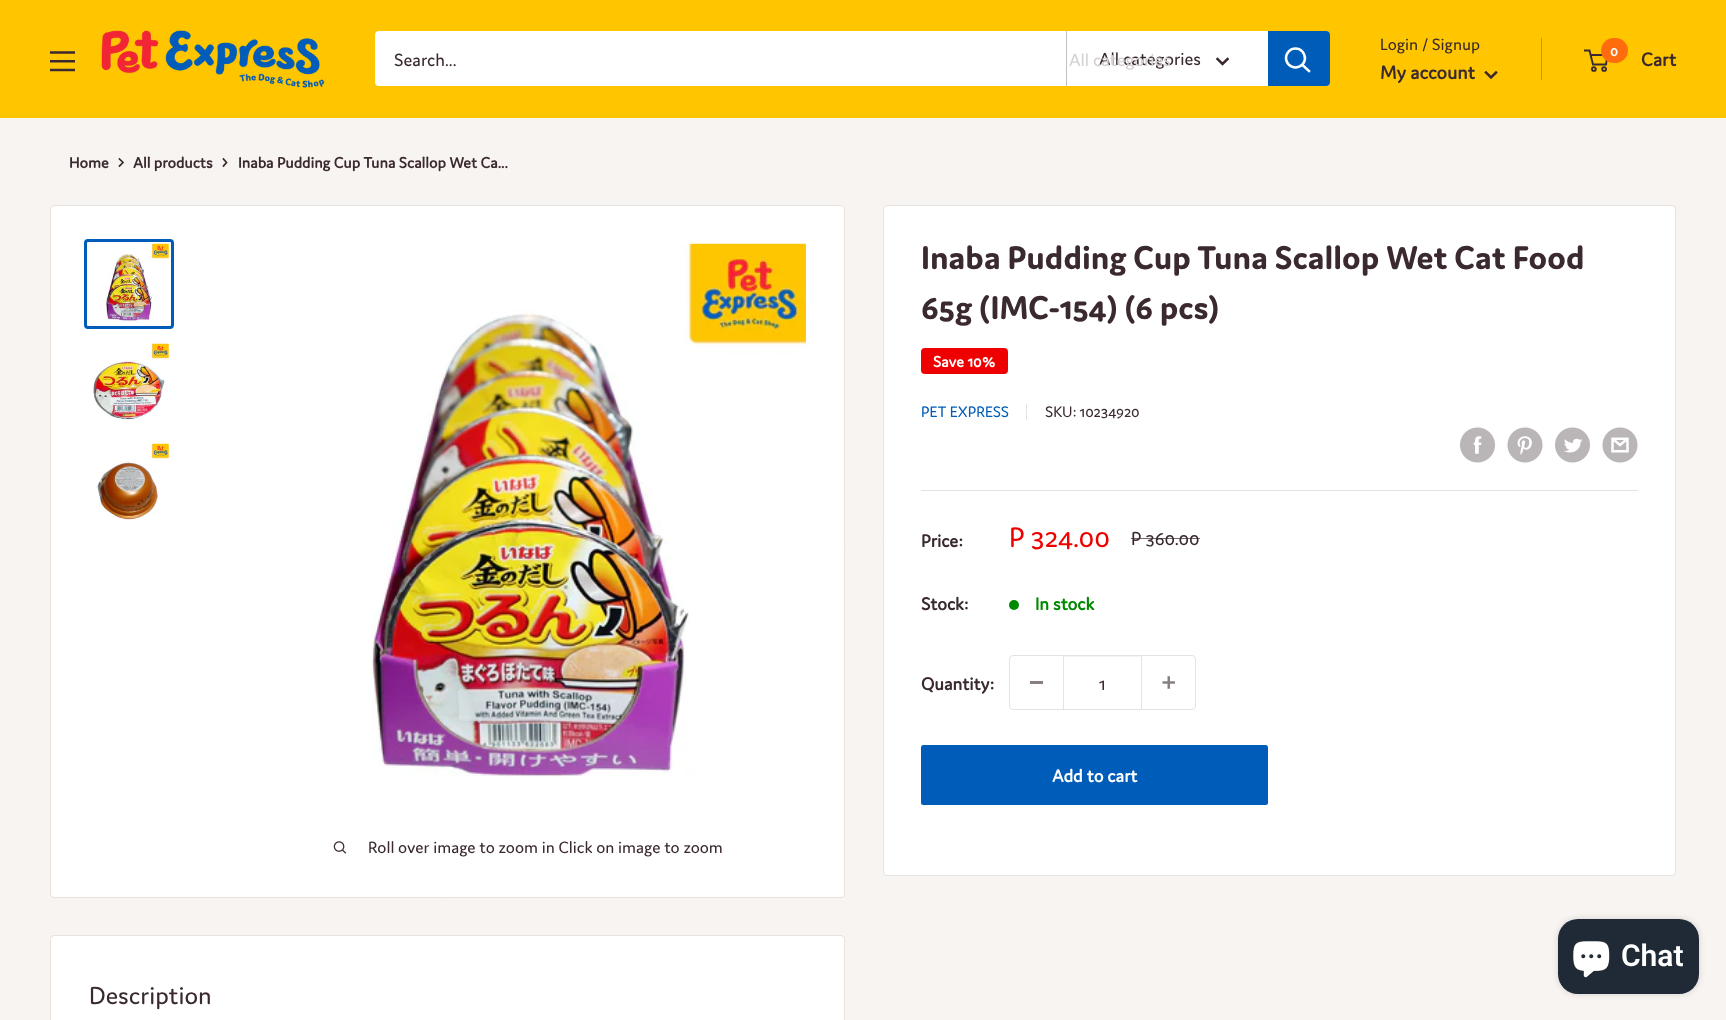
(async () => {
const canvas = document.querySelector("canvas")
canvas.width = 1726
canvas.height = 1020
const c = canvas.getContext("2d")
c.miterLimit = 4
c.fontKerning = "normal"
function T(s,x,y){c.fillText(s,x,y)}
function R(x,y,w,h){c.fillRect(x,y,w,h)}
function Q(x,y,w,h,r){c.beginPath();c.roundRect(x,y,w,h,r);c.fill()}
async function I(src,x,y,w,h){const img=new Image();img.src=src;await img.decode();c.drawImage(img,x,y,w,h)}
let path
c.fillStyle="#f7f4f2"
R(0,0,1726,1020)
c.fillStyle="#ffc600"
R(0,0,1726,118)
await I("1.png",50,51,25,21)
await I("2.png",101,30,224,58)
c.fillStyle="#fff"
Q(375,31,955,55,4)
c.font="18.75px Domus"
c.fillStyle="#3a2a2f"
T("Search...",394,66)
c.fillStyle="#c4bfc1"
R(1066,31,1,55)
c.fillStyle="#3a2a2f"
T("All categories",1099,65)
path = new Path2D("M1227.5 59l-5 5l-5-5")
c.strokeStyle="#3a2a2f"
c.lineWidth=2.5
c.lineCap="square"
c.stroke(path)
c.fillStyle="#d4d1d2"
T("All categories",1069,66)
c.fillStyle="#005cb9"
c.beginPath()
c.roundRect(1268,31,62,55,[0,4,4,0])
c.fill()
path = new Path2D("M1309 71l-6.5-6")
c.strokeStyle="#fff"
c.stroke(path)
c.beginPath()
c.arc(1295.5,58,9.5,0,7)
c.stroke()
c.font="17.5px Domus"
c.fillStyle="#3a2a2f"
T("Login / Signup",1380,50)
c.fillStyle="#c4970e"
R(1541,38,1,42)
c.font="bold 20px Domus"
c.fillStyle="#3a2a2f"
T("My account",1380,79)
path = new Path2D("M1496 72.5l-5 5l-5-5")
c.strokeStyle="#3a2a2f"
c.stroke(path)
c.beginPath()
c.arc(1593.9,69,1.9,0,7)
c.lineWidth=1.9
c.stroke()
c.beginPath()
c.arc(1604.1,69,1.9,0,7)
c.stroke()
path = new Path2D("M1590.5 55h17l-1.5 9.5h-13l-3.5-14h-5.5")
c.lineCap="butt"
c.stroke(path)
c.fillStyle="#ff6c0d"
Q(1601,38,27,25,12.5)
c.font="bold 15px Domus"
c.fillStyle="#fff"
T("0",1610,56)
c.font="bold 20px Domus"
c.fillStyle="#3a2a2f"
T("Cart",1641,66)
c.font="bold 16.25px Domus"
T("Home",69,168)
path = new Path2D("M119.5 159l3.5 3.5l-3.5 3.5")
c.lineWidth=1.7
c.lineCap="square"
c.stroke(path)
T("All products",133,168)
path = new Path2D("M223.5 159l3 3.5l-3 3.5")
c.stroke(path)
T("Inaba Pudding Cup Tuna Scallop Wet Ca...",238,168)
c.fillStyle="#fff"
c.beginPath()
c.roundRect(883.5,205.5,792,670,3.5)
c.fill()
c.strokeStyle="#e7e2de"
c.lineWidth=1
c.stroke()
c.font="bold 35px 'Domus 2'"
c.fillStyle="#3a2a2f"
T("Inaba Pudding Cup Tuna Scallop Wet Cat Food",921,269)
T("65g (IMC-154) (6 pcs)",921,319)
c.fillStyle="#e00"
Q(921,348,87,26,4)
c.font="bold 16.25px Domus"
c.fillStyle="#fff"
T("Save 10%",933,367)
c.font="16.25px Domus"
c.fillStyle="#005cb9"
T("PET EXPRESS",921,417)
c.fillStyle="#e7e2de"
R(1026,404,1,16)
c.fillStyle="#3a2a2f"
T("SKU: 10234920",1045,417)
await I("3.png",1460,427,35,36)
await I("4.png",1507,427,36,36)
await I("5.png",1555,427,35,36)
await I("6.png",1602,427,36,36)
c.fillStyle="#e7e2de"
R(921,490,717,1)
c.font="bold 18.75px Domus"
c.fillStyle="#3a2a2f"
T("Price:",921,547)
c.font="30px Domus"
c.fillStyle="#e00"
T("P 324.00",1009,547)
c.font="20px Domus"
c.fillStyle="#3a2a2f"
T("P 360.00",1131,545)
c.fillStyle="#3a2a2fb3"
R(1131,538,69,1)
c.font="bold 18.75px Domus"
c.fillStyle="#3a2a2f"
T("Stock:",921,610)
c.fillStyle="#008a00"
c.beginPath()
c.arc(1014,605,5,0,7)
c.fill()
T("In stock",1035,610)
c.fillStyle="#3a2a2f"
T("Quantity:",921,690)
c.beginPath()
c.roundRect(1009.5,655.5,186,54,3.5)
c.stroke()
c.fillStyle="#897f82"
R(1030,681,13,3)
c.fillStyle="#f5f3f2"
R(1064,656,77,1)
c.fillStyle="#e7e2de"
R(1141,656,1,53)
R(1063,656,1,53)
c.font="18.75px Domus"
c.fillStyle="#3a2a2f"
T("1",1099,690)
await I("7.png",1162,676,13,13)
c.fillStyle="#005cb9"
Q(921,745,347,60,2.5)
c.font="bold 18.75px Domus"
c.fillStyle="#fff"
T("Add to cart",1052,782)
c.beginPath()
c.roundRect(50.5,205.5,794,692,3.5)
c.fill()
c.stroke()
c.beginPath()
c.roundRect(85.5,240.5,87,87,2.5)
c.strokeStyle="#005cb9"
c.lineWidth=3
c.stroke()
await I("8.png",106,243,63,80)
await I("9.png",93,343,76,77)
await I("10.png",96,443,73,77)
await I("11.png",371,243,435,534)
await I("12.png",333,841,14,13)
c.font="17.5px Domus"
c.fillStyle="#3a2a2f"
T("Roll over image to zoom in Click on image to zoom",368,853)
c.fillStyle="#fff"
c.beginPath()
c.roundRect(50.5,935.5,794,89,3.5)
c.fill()
c.strokeStyle="#e7e2de"
c.lineWidth=1
c.stroke()
c.font="26.25px Domus"
c.fillStyle="#3a2a2f"
T("Description",89,1004)
c.fillStyle="#00000026"
c.filter="blur(3px)"
c.beginPath()
c.roundRect(1558,919,141,75,20)
c.fill()
c.filter="none"
c.fillStyle="#202a36"
Q(1558,919,141,75,20)
await I("13.png",1573,941,37,37)
c.font="600 30px Roboto"
c.fillStyle="#fff"
T("Chat",1621,966)
})()
